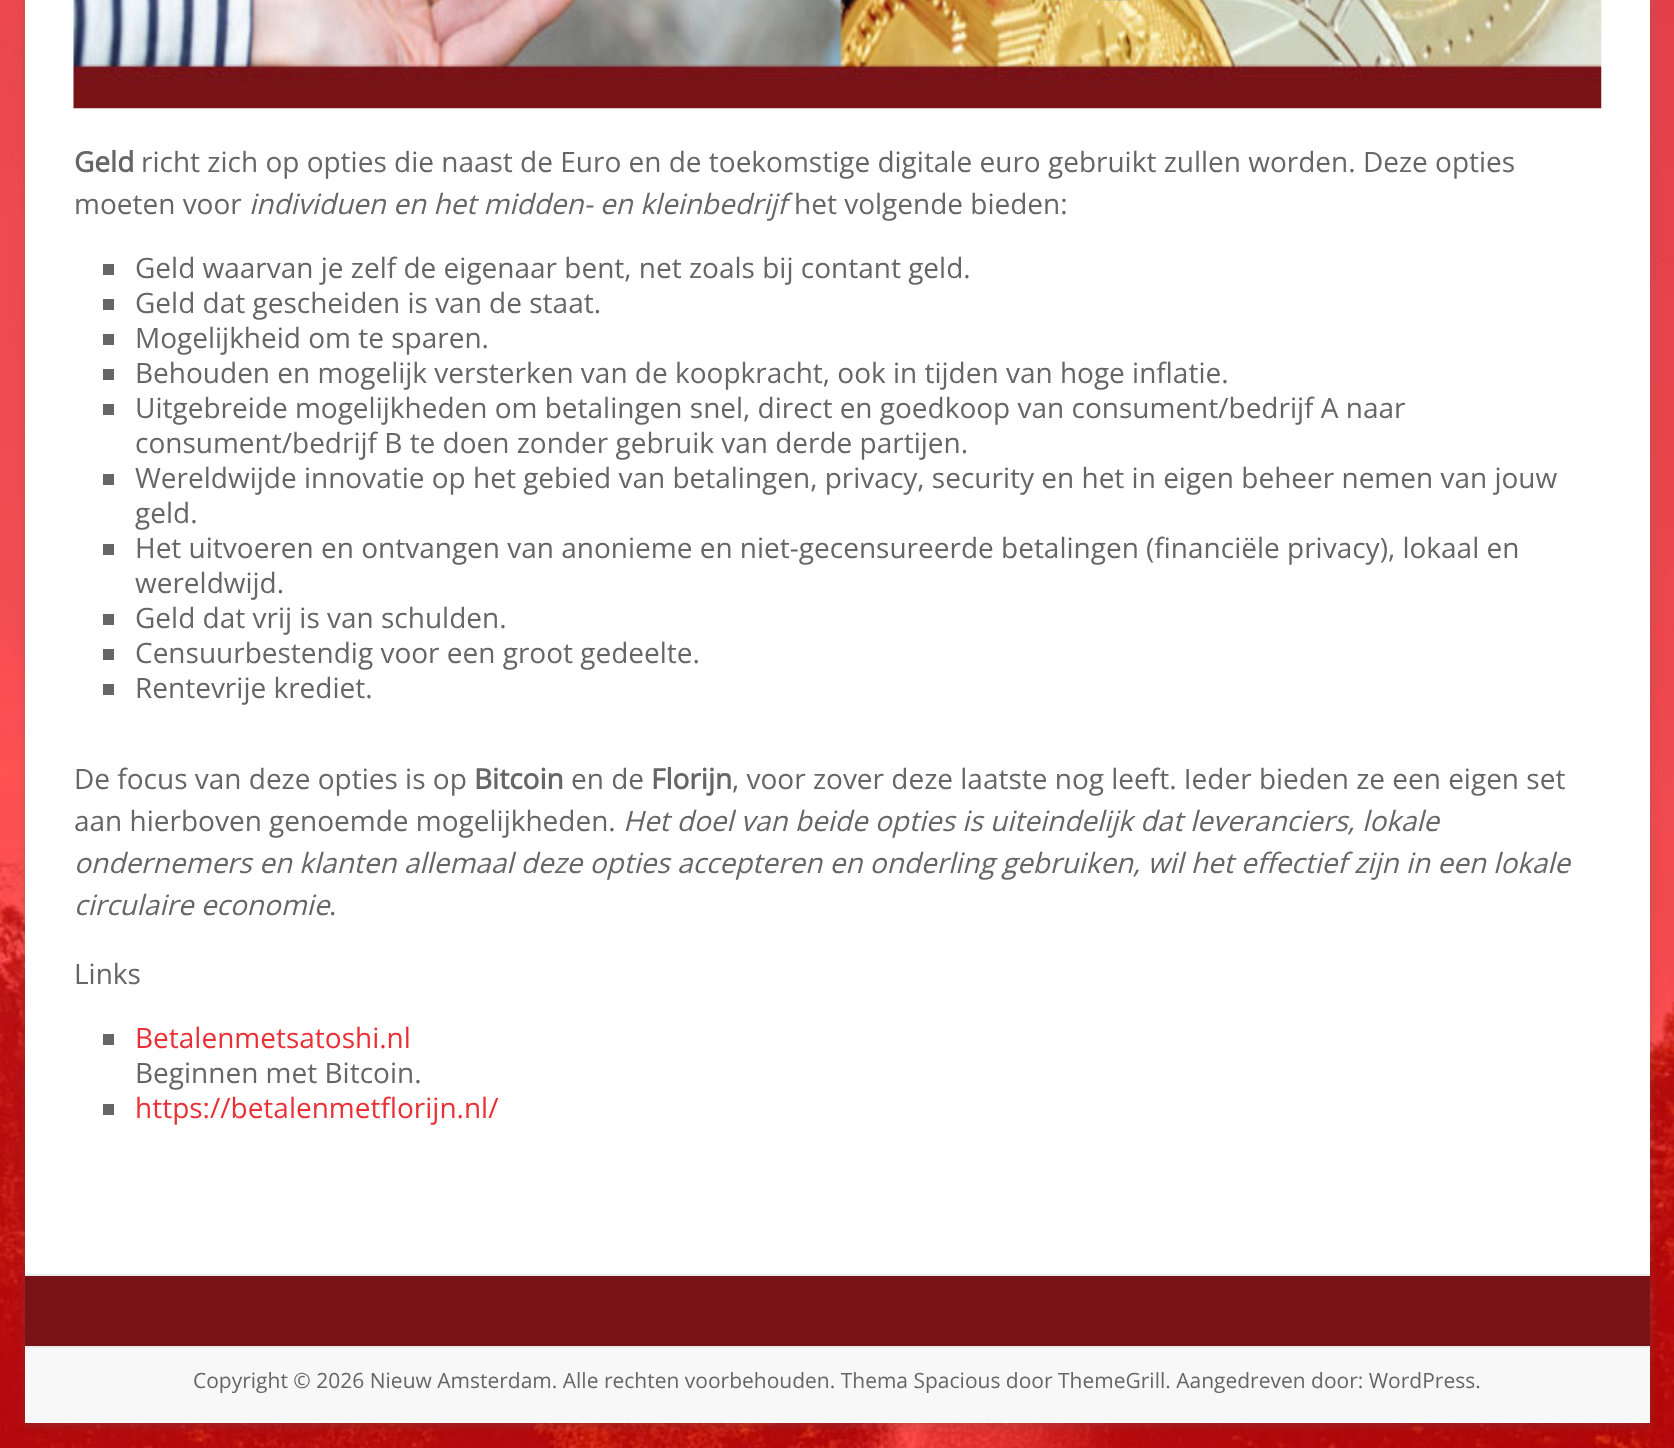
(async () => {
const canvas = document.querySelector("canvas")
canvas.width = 1674
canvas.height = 1448
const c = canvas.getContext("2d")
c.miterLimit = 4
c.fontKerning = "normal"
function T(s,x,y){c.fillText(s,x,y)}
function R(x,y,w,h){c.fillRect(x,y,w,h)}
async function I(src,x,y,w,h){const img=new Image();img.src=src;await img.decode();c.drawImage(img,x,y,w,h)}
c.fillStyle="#fff"
R(0,0,1674,1448)
await I("1.png",0,0,1674,1448)
c.fillStyle="#6464644d"
c.filter="blur(5px)"
c.beginPath()
c.rect(25,-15,1625,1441)
c.fill()
c.filter="none"
c.fillStyle="#fff"
R(25,0,1625,1274)
await I("2.png",73,0,1529,109)
c.font="bold 28px Open Sans"
c.fillStyle="#666"
T("Geld",74,172)
c.font="28px Open Sans"
T("richt zich op opties die naast de Euro en de toekomstige digitale euro gebruikt zullen worden. Deze opties",141,172)
T("moeten voor",74,214)
c.font="italic 28px Open Sans"
T("individuen en het midden- en kleinbedrijf",249,214)
c.font="28px Open Sans"
T("het volgende bieden:",794,214)
R(103,264,11,11)
T("Geld waarvan je zelf de eigenaar bent, net zoals bij contant geld.",135,278)
R(103,299,11,11)
T("Geld dat gescheiden is van de staat.",135,313)
R(103,334,11,11)
T("Mogelijkheid om te sparen.",135,348)
R(103,369,11,11)
T("Behouden en mogelijk versterken van de koopkracht, ook in tijden van hoge inflatie.",135,383)
R(103,404,11,11)
T("Uitgebreide mogelijkheden om betalingen snel, direct en goedkoop van consument/bedrijf A naar",135,418)
T("consument/bedrijf B te doen zonder gebruik van derde partijen.",135,453)
R(103,474,11,11)
T("Wereldwijde innovatie op het gebied van betalingen, privacy, security en het in eigen beheer nemen van jouw",135,488)
T("geld.",135,523)
R(103,544,11,11)
T("Het uitvoeren en ontvangen van anonieme en niet-gecensureerde betalingen (financiële privacy), lokaal en",135,558)
T("wereldwijd.",135,593)
R(103,614,11,11)
T("Geld dat vrij is van schulden.",135,628)
R(103,649,11,11)
T("Censuurbestendig voor een groot gedeelte.",135,663)
R(103,684,11,11)
T("Rentevrije krediet.",135,698)
T("De focus van deze opties is op",74,789)
c.font="bold 28px Open Sans"
T("Bitcoin",474,789)
c.font="28px Open Sans"
T("en de",571,789)
c.font="bold 28px Open Sans"
T("Florijn",651,789)
c.font="28px Open Sans"
T(", voor zover deze laatste nog leeft. Ieder bieden ze een eigen set",732,789)
T("aan hierboven genoemde mogelijkheden.",74,831)
c.font="italic 28px Open Sans"
T("Het doel van beide opties is uiteindelijk dat leveranciers, lokale",623,831)
T("ondernemers en klanten allemaal deze opties accepteren en onderling gebruiken, wil het effectief zijn in een lokale",74,873)
T("circulaire economie",74,915)
c.font="28px Open Sans"
T(".",329,915)
T("Links",74,984)
R(103,1034,11,11)
c.fillStyle="#e93036"
T("Betalenmetsatoshi.nl",135,1048)
c.fillStyle="#666"
T("Beginnen met Bitcoin.",135,1083)
R(103,1104,11,11)
c.fillStyle="#e93036"
T("https://betalenmetflorijn.nl/",135,1118)
c.fillStyle="#781318"
R(25,1276,1625,70)
c.fillStyle="#eaeaea"
R(25,1274,1625,2)
c.fillStyle="#f8f8f8"
R(25,1348,1625,75)
c.fillStyle="#eaeaea"
R(25,1346,1625,2)
c.font="21px Open Sans"
c.fillStyle="#666"
T("Copyright © 2026 Nieuw Amsterdam. Alle rechten voorbehouden. Thema Spacious door ThemeGrill. Aangedreven door: WordPress.",193,1388)
})()
